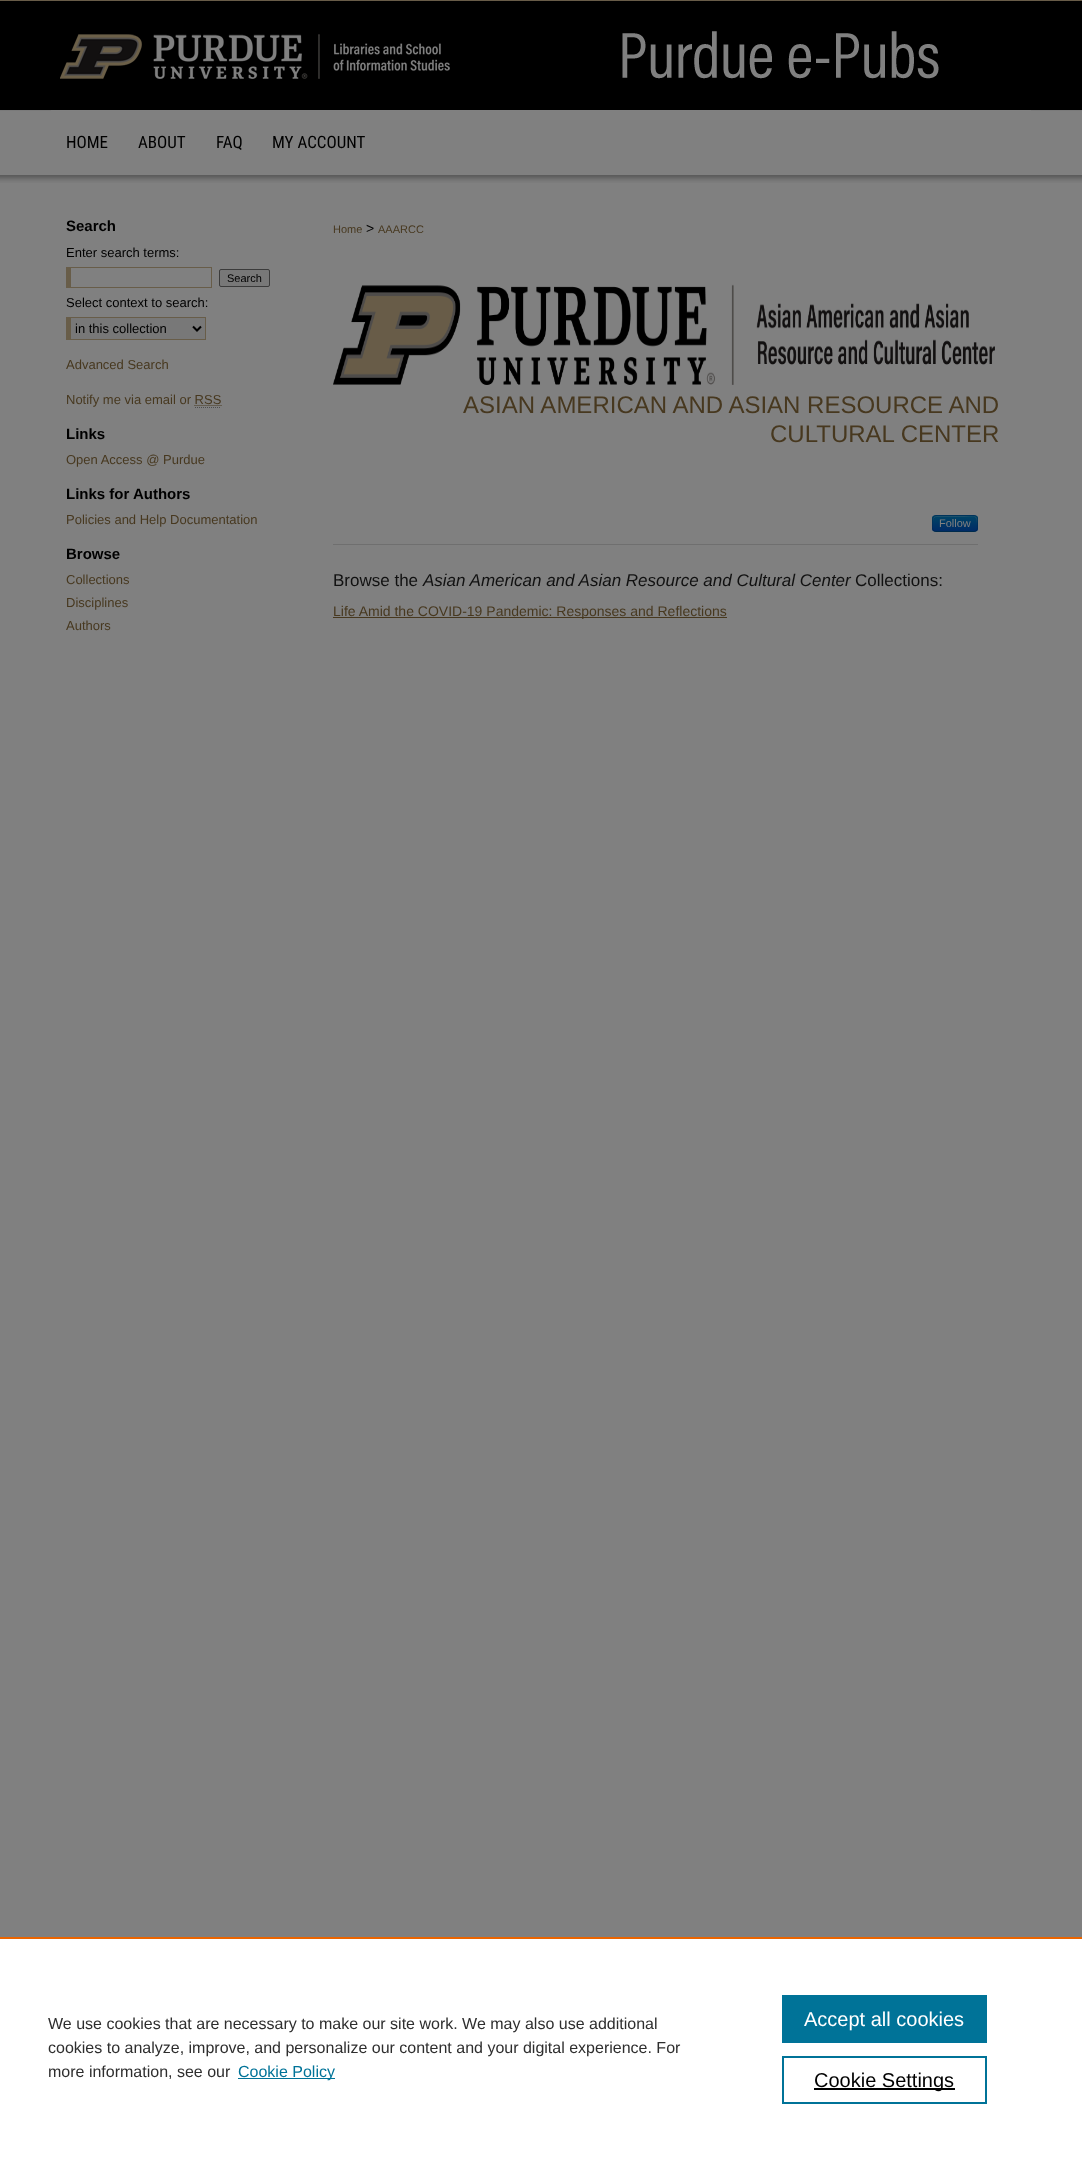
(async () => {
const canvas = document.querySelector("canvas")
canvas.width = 1082
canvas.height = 2157
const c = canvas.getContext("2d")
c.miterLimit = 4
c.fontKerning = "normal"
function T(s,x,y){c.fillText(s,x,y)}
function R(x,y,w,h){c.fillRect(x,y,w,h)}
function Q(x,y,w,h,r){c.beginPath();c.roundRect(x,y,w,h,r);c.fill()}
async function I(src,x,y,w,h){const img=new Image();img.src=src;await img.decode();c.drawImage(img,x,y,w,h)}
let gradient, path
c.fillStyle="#808080"
R(0,0,1082,2157)
await I("1.png",0,0,1082,183)
await I("2.png",51,0,980,79)
R(51,110,980,1)
c.font="17px Roboto Condensed"
c.fillStyle="#000"
T("HOME",66,148)
T("ABOUT",138,148)
T("FAQ",216,148)
T("MY ACCOUNT",272,148)
c.font="bold 15px Liberation Sans"
T("Search",66,231)
c.font="13px Liberation Sans"
T("Enter search terms:",66,257)
c.fillStyle="#685d49"
R(66,267,146,1)
R(211,267,1,21)
R(66,287,146,1)
R(66,267,5,21)
c.fillStyle="#787878"
c.beginPath()
c.roundRect(219.5,269.5,50,17,1.5)
c.fill()
c.strokeStyle="#3b3b3b"
c.stroke()
c.font="11px Liberation Sans"
c.fillStyle="#000"
T("Search",227,282)
c.font="13px Liberation Sans"
T("Select context to search:",66,307)
c.fillStyle="#787878"
R(71,318,134,21)
c.fillStyle="#685d49"
R(66,317,140,1)
R(205,317,1,23)
R(66,339,140,1)
R(66,317,5,23)
path = new Path2D("M193 326.5l4 4l4-4")
c.strokeStyle="#000"
c.lineWidth=2
c.stroke(path)
c.fillStyle="#000"
T("in this collection",75,333)
c.fillStyle="#47381f"
T("Advanced Search",66,369)
T("Notify me via email or RSS",66,404)
path = new Path2D("M194.5 405.5h27")
c.strokeStyle="#47381f"
c.lineWidth=1
c.setLineDash([1,1])
c.stroke(path)
path = new Path2D("M195 407.5h26")
c.strokeStyle="#4d4d4d"
c.stroke(path)
c.font="bold 15px Liberation Sans"
c.fillStyle="#000"
T("Links",66,439)
c.font="13px Liberation Sans"
c.fillStyle="#47381f"
T("Open Access @ Purdue",66,464)
c.font="bold 15px Liberation Sans"
c.fillStyle="#000"
T("Links for Authors",66,499)
c.font="13px Liberation Sans"
c.fillStyle="#47381f"
T("Policies and Help Documentation",66,524)
c.font="bold 15px Liberation Sans"
c.fillStyle="#000"
T("Browse",66,559)
c.font="13px Liberation Sans"
c.fillStyle="#47381f"
T("Collections",66,584)
T("Disciplines",66,607)
T("Authors",66,630)
c.font="11px Liberation Sans"
T("Home",333,233)
c.font="14px Liberation Sans"
c.fillStyle="#000"
T(">",366,233)
c.font="11px Liberation Sans"
c.fillStyle="#47381f"
T("AAARCC",378,233)
await I("3.png",333,284,662,101)
c.font="24px Liberation Sans"
T("ASIAN AMERICAN AND ASIAN RESOURCE AND",463,413)
T("CULTURAL CENTER",770,442)
c.fillStyle="#6f6f6f"
R(333,544,645,1)
c.fillStyle="#003a66"
Q(932,515,46,17,4)
c.save()
c.beginPath()
c.roundRect(932,515,46,17,4)
c.clip()
gradient = c.createLinearGradient(955,516,955,531)
gradient.addColorStop(0,"#046")
gradient.addColorStop(1,"#002b66")
c.fillStyle = gradient
R(932,516,46,15)
c.restore()
c.fillStyle="#80808033"
path = new Path2D("M936 517h25c14 0 16-4 16 11c0-11 3-12-9-12h-26c-7 0-9-1-9 6v7c0-3-1-12 3-12z")
c.fill(path)
path = new Path2D("M976.5 530.5c-.5 .5-1.5 1-2.5 1h-38c-1 0-2-.5-2.5-1")
c.strokeStyle="#00000040"
c.setLineDash([])
c.stroke(path)
path = new Path2D("M933.5 530.5c-1.5-2-1-5-1-7c0-9 .5-8 10-8h25c9.5 0 10-1 10 8c0 2 .5 5-1 7")
c.strokeStyle="#0000001a"
c.stroke(path)
c.font="11px Liberation Sans"
c.fillStyle="#808080"
T("Follow",939,527)
c.font="17px Liberation Sans"
c.fillStyle="#111"
T("Browse the",333,586)
c.font="italic 17px Liberation Sans"
T("Asian American and Asian Resource and Cultural Center",423,586)
c.font="17px Liberation Sans"
T("Collections:",855,586)
c.fillStyle="#47381f"
R(333,617,394,1)
c.font="14px Liberation Sans"
T("Life Amid the COVID-19 Pandemic: Responses and Reflections",333,616)
c.fillStyle="#fff"
R(0,1939,1082,218)
c.fillStyle="#eb6500"
R(0,1937,1082,2)
c.font="16px Liberation Sans"
c.fillStyle="#2e2e2e"
T("We use cookies that are necessary to make our site work. We may also use additional",48,2029)
T("cookies to analyze, improve, and personalize our content and your digital experience. For",48,2053)
T("more information, see our",48,2077)
c.fillStyle="#007398"
R(238,2078,97,1)
T("Cookie Policy",238,2077)
R(782,1995,205,48)
c.font="20px Liberation Sans"
c.fillStyle="#fff"
T("Accept all cookies",804,2026)
c.strokeStyle="#007398"
c.lineWidth=2
c.strokeRect(783,2057,203,46)
c.fillStyle="#000"
R(814,2088,141,2)
T("Cookie Settings",814,2087)
})()
